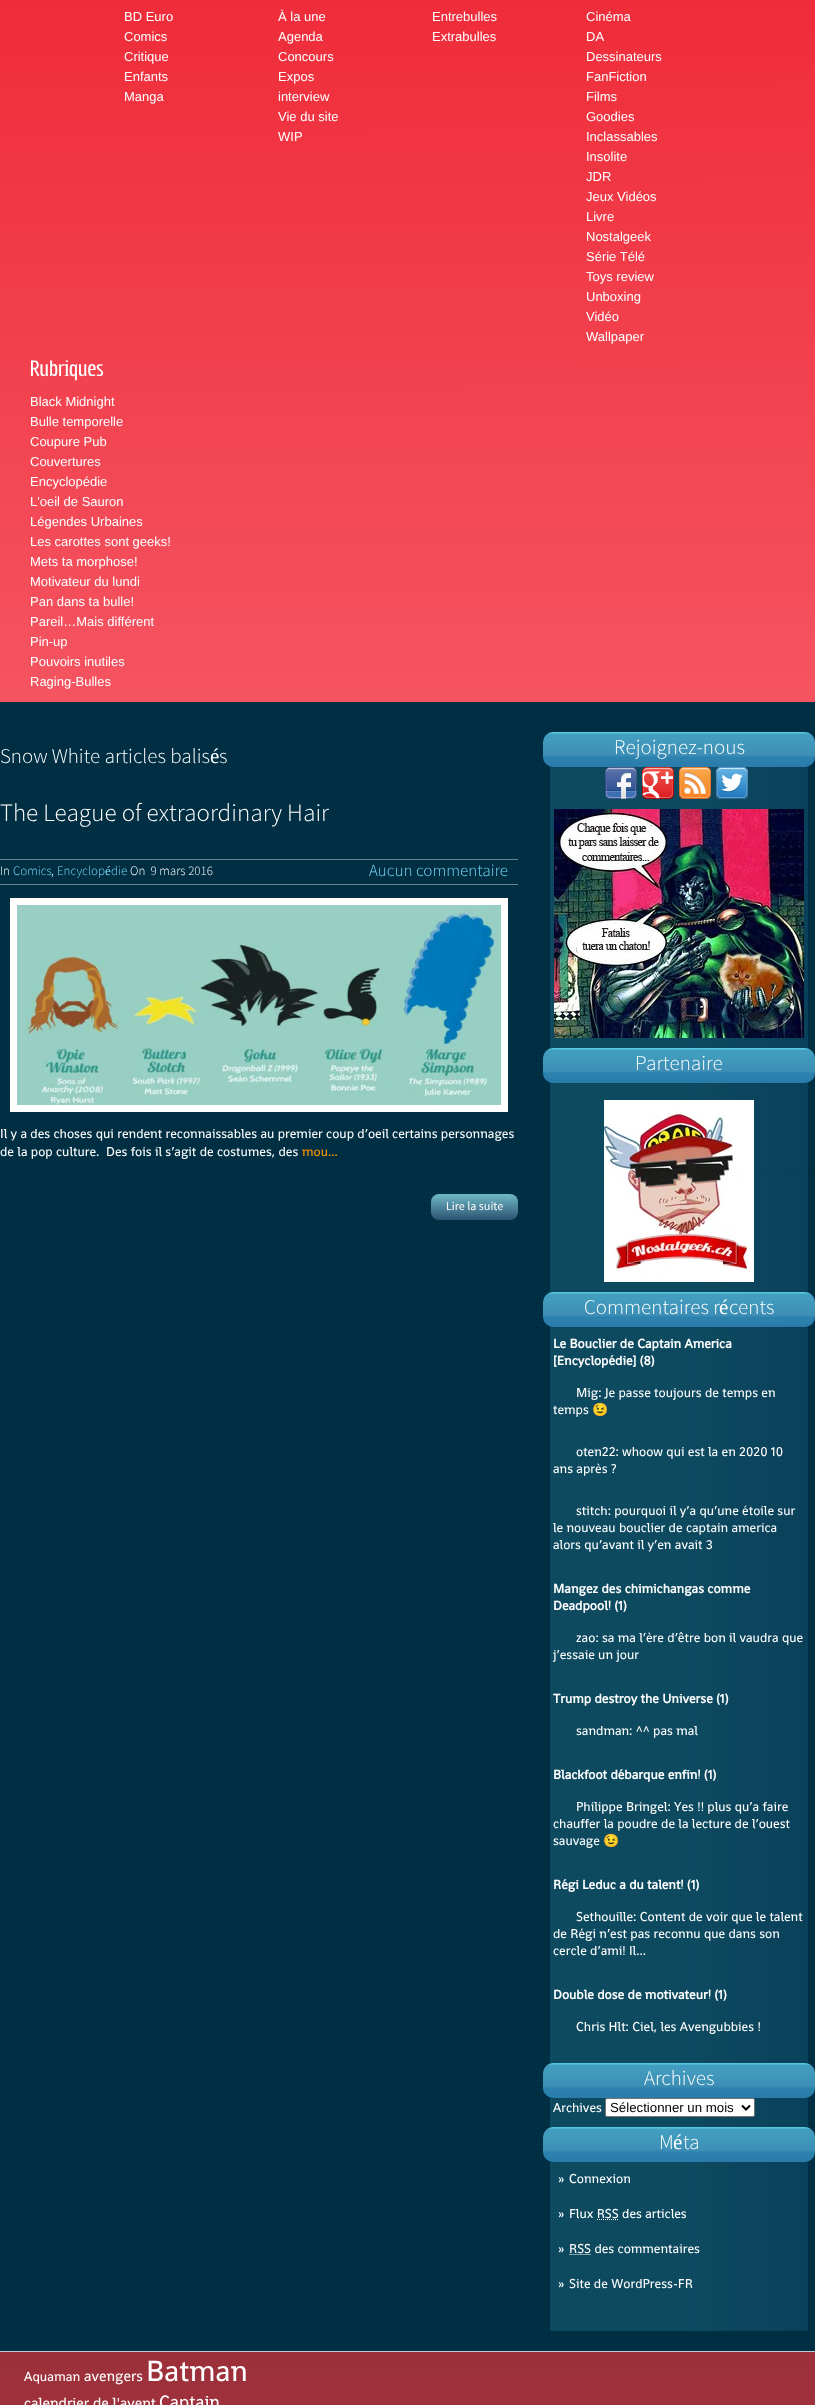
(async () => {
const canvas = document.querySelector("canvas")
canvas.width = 815
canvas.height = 2405
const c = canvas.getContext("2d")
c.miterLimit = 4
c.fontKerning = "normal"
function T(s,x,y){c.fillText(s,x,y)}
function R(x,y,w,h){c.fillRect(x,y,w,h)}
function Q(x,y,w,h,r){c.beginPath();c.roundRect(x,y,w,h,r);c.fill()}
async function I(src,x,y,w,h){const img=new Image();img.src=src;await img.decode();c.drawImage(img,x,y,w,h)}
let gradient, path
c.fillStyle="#fff"
R(0,0,815,2405)
await I("1.png",0,702,815,1649)
gradient = c.createLinearGradient(407,-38,408,702)
gradient.addColorStop(0,"#ef2a37")
gradient.addColorStop(1,"#f55461")
c.fillStyle = gradient
R(0,0,815,702)
c.font="13px Liberation Sans"
c.fillStyle="#fff"
T("BD Euro",124,21)
T("Comics",124,41)
T("Critique",124,61)
T("Enfants",124,81)
T("Manga",124,101)
T("À la une",278,21)
T("Agenda",278,41)
T("Concours",278,61)
T("Expos",278,81)
T("interview",278,101)
T("Vie du site",278,121)
T("WIP",278,141)
T("Entrebulles",432,21)
T("Extrabulles",432,41)
T("Cinéma",586,21)
T("DA",586,41)
T("Dessinateurs",586,61)
T("FanFiction",586,81)
T("Films",586,101)
T("Goodies",586,121)
T("Inclassables",586,141)
T("Insolite",586,161)
T("JDR",586,181)
T("Jeux Vidéos",586,201)
T("Livre",586,221)
T("Nostalgeek",586,241)
T("Série Télé",586,261)
T("Toys review",586,281)
T("Unboxing",586,301)
T("Vidéo",586,321)
T("Wallpaper",586,341)
c.font="14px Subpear"
T("Rubriques",30,376)
c.font="13px Liberation Sans"
T("Black Midnight",30,406)
T("Bulle temporelle",30,426)
T("Coupure Pub",30,446)
T("Couvertures",30,466)
T("Encyclopédie",30,486)
T("L'oeil de Sauron",30,506)
T("Légendes Urbaines",30,526)
T("Les carottes sont geeks!",30,546)
T("Mets ta morphose!",30,566)
T("Motivateur du lundi",30,586)
T("Pan dans ta bulle!",30,606)
T("Pareil…Mais différent",30,626)
T("Pin-up",30,646)
T("Pouvoirs inutiles",30,666)
T("Raging-Bulles",30,686)
c.font="300 21px Source Sans Pro"
T("Snow White articles balis",0,763)
c.font="21px Liberation Serif"
T("é",210,763)
c.font="300 21px Source Sans Pro"
T("s",219,763)
c.font="300 25px Source Sans Pro"
T("The League of extraordinary Hair",0,821)
c.fillStyle="#678390"
R(0,859,518,1)
R(0,884,518,1)
c.font="300 13px Source Sans Pro"
c.fillStyle="#fff"
T("In",0,875)
c.fillStyle="#75d9f6"
T("Comics",13,875)
c.fillStyle="#fff"
T(",",51,875)
c.fillStyle="#75d9f6"
T("Encyclop",57,875)
c.font="13px Liberation Serif"
T("é",105,875)
c.font="300 13px Source Sans Pro"
T("die",111,875)
c.fillStyle="#fff"
T("On  9 mars 2016",130,875)
c.font="300 17px Source Sans Pro"
c.fillStyle="#75d9f6"
T("Aucun commentaire",369,876)
c.fillStyle="#fff"
R(10,898,498,214)
await I("2.png",17,905,484,200)
c.font="13px Shanti"
T("Il y a des choses qui rendent reconnaissables au premier coup d’oeil certains personnages",0,1138)
T("de la pop culture.  Des fois il s’agit de costumes, des",0,1156)
c.fillStyle="#f90"
T("mou...",302,1156)
gradient = c.createLinearGradient(475,1194,475,1220)
gradient.addColorStop(0,"#70b9c7")
gradient.addColorStop(.98,"#2d5573")
c.fillStyle = gradient
Q(431,1194,87,26,8)
c.font="12px Source Sans Pro"
c.fillStyle="#fff"
T("Lire la suite",446,1210)
await I("3.png",550,732,258,1599)
await I("4.png",543,732,272,35)
c.font="300 21px Source Sans Pro"
T("Rejoignez-nous",614,754)
await I("5.png",605,767,32,32)
await I("6.png",642,767,32,32)
await I("7.png",679,767,32,32)
await I("8.png",716,767,32,32)
await I("9.png",554,809,250,229)
await I("10.png",543,1048,272,35)
T("Partenaire",635,1070)
await I("11.png",604,1100,150,182)
await I("12.png",543,1292,272,35)
T("Commentaires r",584,1314)
c.font="21px Liberation Serif"
T("é",719,1314)
c.font="300 21px Source Sans Pro"
T("cents",729,1314)
c.font="bold 13px Shanti"
T("Le Bouclier de Captain America",553,1348)
T("[Encyclopédie] (8)",553,1365)
c.font="13px Shanti"
T("Mig: Je passe toujours de temps en",576,1397)
T("temps",553,1414)
c.font="13px Noto Color Emoji"
T("😉",592,1414)
c.font="13px Shanti"
T("oten22: whoow qui est la en 2020 10",576,1456)
T("ans après ?",553,1473)
T("stitch: pourquoi il y’a qu’une étoile sur",576,1515)
T("le nouveau bouclier de captain america",553,1532)
T("alors qu’avant il y’en avait 3",553,1549)
c.font="bold 13px Shanti"
T("Mangez des chimichangas comme",553,1593)
T("Deadpool! (1)",553,1610)
c.font="13px Shanti"
T("zao: sa ma l’ère d’être bon il vaudra que",576,1642)
T("j’essaie un jour",553,1659)
c.font="bold 13px Shanti"
T("Trump destroy the Universe (1)",553,1703)
c.font="13px Shanti"
T("sandman: ^^ pas mal",576,1735)
c.font="bold 13px Shanti"
T("Blackfoot débarque enfin! (1)",553,1779)
c.font="13px Shanti"
T("Philippe Bringel: Yes !! plus qu’a faire",576,1811)
T("chauffer la poudre de la lecture de l’ouest",553,1828)
T("sauvage",553,1845)
c.font="13px Noto Color Emoji"
T("😉",603,1845)
c.font="bold 13px Shanti"
T("Régi Leduc a du talent! (1)",553,1889)
c.font="13px Shanti"
T("Sethouille: Content de voir que le talent",576,1921)
T("de Régi n’est pas reconnu que dans son",553,1938)
T("cercle d’ami! Il...",553,1955)
c.font="bold 13px Shanti"
T("Double dose de motivateur! (1)",553,1999)
c.font="13px Shanti"
T("Chris Hlt: Ciel, les Avengubbies !",576,2031)
await I("13.png",543,2063,272,35)
c.font="300 21px Source Sans Pro"
T("Archives",644,2085)
c.font="13px Shanti"
T("Archives",553,2112)
c.beginPath()
c.roundRect(605.5,2098.5,149,18,1.5)
c.fill()
c.strokeStyle="#767676"
c.stroke()
path = new Path2D("M742 2105.5l4 4l4-4")
c.strokeStyle="#000"
c.lineWidth=2
c.stroke(path)
c.font="13.25px Liberation Sans"
c.fillStyle="#000"
T("Sélectionner un mois",610,2112)
await I("14.png",543,2127,272,35)
c.font="300 21px Source Sans Pro"
c.fillStyle="#fff"
T("M",659,2149)
c.font="21px Liberation Serif"
T("é",673,2149)
c.font="300 21px Source Sans Pro"
T("ta",683,2149)
c.font="13px Shanti"
T("»",558,2183)
T("Connexion",569,2183)
T("»",558,2218)
T("Flux RSS des articles",569,2218)
path = new Path2D("M597 2219.5h22")
c.strokeStyle="#fff"
c.lineWidth=1
c.setLineDash([1,1])
c.stroke(path)
T("»",558,2253)
T("RSS des commentaires",569,2253)
path = new Path2D("M569.5 2254.5h22")
c.stroke(path)
T("»",558,2288)
T("Site de WordPress-FR",569,2288)
gradient = c.createLinearGradient(408,2352,408,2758)
gradient.addColorStop(0,"#9c303a")
gradient.addColorStop(1,"#ab3642")
c.fillStyle = gradient
R(0,2352,815,53)
c.fillStyle="#bfcdd2"
R(0,2351,815,1)
c.font="13.25px Shanti"
c.fillStyle="#fff"
T("Aquaman",24,2381)
c.font="14.75px Shanti"
T("avengers",84,2381)
c.font="29.5px Shanti"
T("Batman",146,2381)
c.font="14.75px Shanti"
T("calendrier de l'avent",24,2408)
c.font="18px Shanti"
T("Captain",159,2408)
})()
